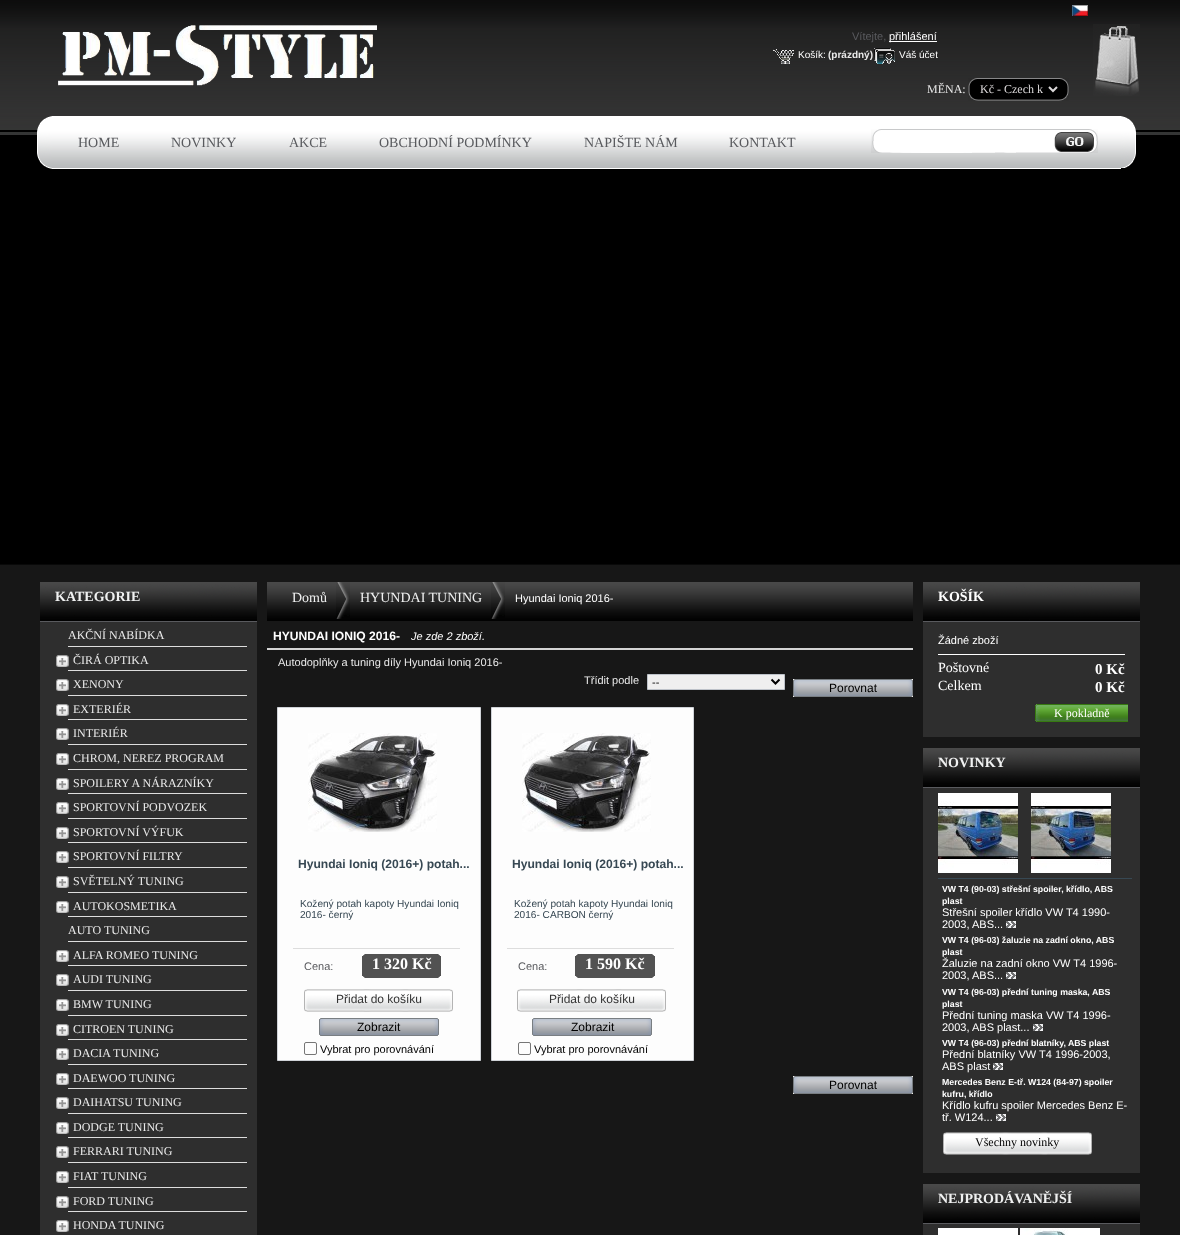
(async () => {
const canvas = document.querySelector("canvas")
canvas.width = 1180
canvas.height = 1235
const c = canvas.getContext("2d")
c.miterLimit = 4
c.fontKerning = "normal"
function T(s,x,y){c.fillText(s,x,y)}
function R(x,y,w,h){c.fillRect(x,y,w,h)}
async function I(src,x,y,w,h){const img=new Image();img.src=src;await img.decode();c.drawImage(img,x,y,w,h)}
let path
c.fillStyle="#171717"
R(0,0,1180,1235)
await I("1.png",0,0,1180,565)
await I("2.png",58,25,319,61)
await I("3.png",1093,24,47,72)
await I("4.png",1072,5,16,11)
c.font="11px Liberation Sans"
c.fillStyle="#595a5e"
T("Vítejte,",852,40)
c.fillStyle="#fff"
R(889,41,48,1)
T("přihlášení",889,40)
await I("5.png",773,49,21,15)
c.font="10px Liberation Sans"
T("Košík:",798,58)
c.font="bold 10px Liberation Sans"
c.fillStyle="#e9e9e9"
T("(prázdný)",828,58)
await I("6.png",874,48,21,16)
c.font="10px Liberation Sans"
c.fillStyle="#fff"
T("Váš účet",899,58)
c.font="12px Liberation Serif"
c.fillStyle="#e9e9e9"
T("MĚNA:",927,93)
await I("7.png",968,78,101,23)
path = new Path2D("M1049 87l4 4l4-4")
c.strokeStyle="#dbd8d9"
c.lineWidth=2
c.stroke(path)
c.fillStyle="#dbd8d9"
T("Kč - Czech k",980,93)
await I("8.png",37,116,15,53)
await I("9.png",1121,116,15,52)
await I("10.png",52,116,1040,53)
c.font="14px Liberation Serif"
c.fillStyle="#595a5e"
T("HOME",78,147)
T("NOVINKY",171,147)
T("AKCE",289,147)
T("OBCHODNÍ PODMÍNKY",379,147)
T("NAPIŠTE NÁM",584,147)
T("KONTAKT",729,147)
await I("11.png",1092,116,29,53)
await I("12.png",871,129,183,24)
c.fillStyle="#fff"
R(888,137,43,9)
await I("13.png",1054,129,44,24)
await I("14.png",40,582,217,39)
c.fillStyle="#595a5e"
R(40,621,217,1)
c.font="bold 14px Liberation Serif"
c.fillStyle="#f0f1f1"
T("KATEGORIE",55,601)
c.fillStyle="#2e2e2e"
R(40,622,217,613)
c.fillStyle="#ddd"
R(68,646,179,1)
c.font="12px Liberation Serif"
c.fillStyle="#e9e9e9"
T("AKČNÍ NABÍDKA",68,639)
c.fillStyle="#ddd"
R(68,670,179,1)
await I("15.png",56,655,13,12)
c.fillStyle="#e9e9e9"
T("ČIRÁ OPTIKA",73,664)
c.fillStyle="#ddd"
R(68,695,179,1)
await I("15.png",56,679,13,12)
c.fillStyle="#e9e9e9"
T("XENONY",73,688)
c.fillStyle="#ddd"
R(68,719,179,1)
await I("15.png",56,704,13,12)
c.fillStyle="#e9e9e9"
T("EXTERIÉR",73,713)
c.fillStyle="#ddd"
R(68,744,179,1)
await I("15.png",56,728,13,12)
c.fillStyle="#e9e9e9"
T("INTERIÉR",73,737)
c.fillStyle="#ddd"
R(68,769,179,1)
await I("15.png",56,753,13,12)
c.fillStyle="#e9e9e9"
T("CHROM, NEREZ PROGRAM",73,762)
c.fillStyle="#ddd"
R(68,793,179,1)
await I("15.png",56,778,13,12)
c.fillStyle="#e9e9e9"
T("SPOILERY A NÁRAZNÍKY",73,787)
c.fillStyle="#ddd"
R(68,818,179,1)
await I("15.png",56,802,13,12)
c.fillStyle="#e9e9e9"
T("SPORTOVNÍ PODVOZEK",73,811)
c.fillStyle="#ddd"
R(68,842,179,1)
await I("15.png",56,827,13,12)
c.fillStyle="#e9e9e9"
T("SPORTOVNÍ VÝFUK",73,836)
c.fillStyle="#ddd"
R(68,867,179,1)
await I("15.png",56,851,13,12)
c.fillStyle="#e9e9e9"
T("SPORTOVNÍ FILTRY",73,860)
c.fillStyle="#ddd"
R(68,892,179,1)
await I("15.png",56,876,13,12)
c.fillStyle="#e9e9e9"
T("SVĚTELNÝ TUNING",73,885)
c.fillStyle="#ddd"
R(68,916,179,1)
await I("15.png",56,901,13,12)
c.fillStyle="#e9e9e9"
T("AUTOKOSMETIKA",73,910)
c.fillStyle="#ddd"
R(68,941,179,1)
c.fillStyle="#e9e9e9"
T("AUTO TUNING",68,934)
c.fillStyle="#ddd"
R(68,965,179,1)
await I("15.png",56,950,13,12)
c.fillStyle="#e9e9e9"
T("ALFA ROMEO TUNING",73,959)
c.fillStyle="#ddd"
R(68,990,179,1)
await I("15.png",56,974,13,12)
c.fillStyle="#e9e9e9"
T("AUDI TUNING",73,983)
c.fillStyle="#ddd"
R(68,1015,179,1)
await I("15.png",56,999,13,12)
c.fillStyle="#e9e9e9"
T("BMW TUNING",73,1008)
c.fillStyle="#ddd"
R(68,1039,179,1)
await I("15.png",56,1024,13,12)
c.fillStyle="#e9e9e9"
T("CITROEN TUNING",73,1033)
c.fillStyle="#ddd"
R(68,1064,179,1)
await I("15.png",56,1048,13,12)
c.fillStyle="#e9e9e9"
T("DACIA TUNING",73,1057)
c.fillStyle="#ddd"
R(68,1088,179,1)
await I("15.png",56,1073,13,12)
c.fillStyle="#e9e9e9"
T("DAEWOO TUNING",73,1082)
c.fillStyle="#ddd"
R(68,1113,179,1)
await I("15.png",56,1097,13,12)
c.fillStyle="#e9e9e9"
T("DAIHATSU TUNING",73,1106)
c.fillStyle="#ddd"
R(68,1137,179,1)
await I("15.png",56,1122,13,12)
c.fillStyle="#e9e9e9"
T("DODGE TUNING",73,1131)
c.fillStyle="#ddd"
R(68,1162,179,1)
await I("15.png",56,1146,13,12)
c.fillStyle="#e9e9e9"
T("FERRARI TUNING",73,1155)
c.fillStyle="#ddd"
R(68,1187,179,1)
await I("15.png",56,1171,13,12)
c.fillStyle="#e9e9e9"
T("FIAT TUNING",73,1180)
c.fillStyle="#ddd"
R(68,1211,179,1)
await I("15.png",56,1196,13,12)
c.fillStyle="#e9e9e9"
T("FORD TUNING",73,1205)
await I("15.png",56,1220,13,12)
T("HONDA TUNING",73,1229)
await I("16.png",267,582,646,39)
c.font="14px Liberation Serif"
c.fillStyle="#f0f1f1"
T("Domů",292,602)
await I("17.png",336,582,14,37)
T("HYUNDAI TUNING",360,602)
await I("17.png",491,582,14,37)
c.font="11px Liberation Sans"
c.fillStyle="#fff"
T("Hyundai Ioniq 2016-",515,602)
c.fillStyle="#d4d4d4"
R(267,648,646,2)
c.font="bold 12.1px Liberation Sans"
c.fillStyle="#fff"
T("HYUNDAI IONIQ 2016-",273,640)
c.font="italic 11px Liberation Sans"
T("Je zde 2 zboží.",411,640)
c.font="11px Liberation Sans"
c.fillStyle="#e9e9e9"
T("Autodoplňky a tuning díly Hyundai Ioniq 2016-",278,666)
T("Třídit podle",584,684)
c.fillStyle="#efefef"
c.beginPath()
c.rect(647.5,674.5,137,15)
c.fill()
c.strokeStyle="#bdc2c9"
c.lineWidth=1
c.stroke()
path = new Path2D("M771.5 679.5l4 4l4-4")
c.strokeStyle="#000"
c.lineWidth=2
c.stroke(path)
c.fillStyle="#000"
T("--",652,686)
c.fillStyle="#efefef"
R(793,679,120,18)
await I("18.png",793,679,120,18)
c.font="12px Liberation Sans"
c.fillStyle="#000"
T("Porovnat",829,692)
c.fillStyle="#fdfdfd"
c.beginPath()
c.rect(277.5,707.5,203,353)
c.fill()
c.strokeStyle="#d0d3d8"
c.lineWidth=1
c.stroke()
await I("19.png",308,733,129,99)
c.font="bold 12.1px Liberation Sans"
c.fillStyle="#374853"
T("Hyundai Ioniq (2016+) potah...",298,868)
c.fillStyle="#ddd"
R(293,948,167,1)
c.font="10.1px Liberation Sans"
c.fillStyle="#374853"
T("Kožený potah kapoty Hyundai Ioniq",300,907)
T("2016- černý",300,918)
c.font="11px Liberation Sans"
c.fillStyle="#595a5e"
T("Cena:",304,970)
c.fillStyle="#525252"
R(362,954,79,24)
await I("20.png",362,954,3,2)
await I("21.png",362,976,3,2)
await I("22.png",438,954,3,2)
await I("23.png",438,976,3,2)
c.font="bold 16px Liberation Serif"
c.fillStyle="#fff"
T("1 320 Kč",372,969)
await I("24.png",304,989,149,23)
c.font="12px Liberation Sans"
c.fillStyle="#343434"
T("Přidat do košíku",336,1003)
await I("25.png",319,1018,120,18)
c.fillStyle="#000"
T("Zobrazit",357,1031)
c.beginPath()
c.roundRect(304.5,1042.5,12,12,1.5)
c.strokeStyle="#767676"
c.stroke()
c.font="11px Liberation Sans"
T("Vybrat pro porovnávání",320,1053)
c.fillStyle="#fdfdfd"
c.beginPath()
c.rect(491.5,707.5,202,353)
c.fill()
c.strokeStyle="#d0d3d8"
c.stroke()
await I("19.png",522,733,129,99)
c.font="bold 12.1px Liberation Sans"
c.fillStyle="#374853"
T("Hyundai Ioniq (2016+) potah...",512,868)
c.fillStyle="#ddd"
R(507,948,167,1)
c.font="10.1px Liberation Sans"
c.fillStyle="#374853"
T("Kožený potah kapoty Hyundai Ioniq",514,907)
T("2016- CARBON černý",514,918)
c.font="11px Liberation Sans"
c.fillStyle="#595a5e"
T("Cena:",518,970)
c.fillStyle="#525252"
R(575,954,80,24)
await I("20.png",575,954,3,2)
await I("21.png",575,976,3,2)
await I("22.png",652,954,3,2)
await I("23.png",652,976,3,2)
c.font="bold 16px Liberation Serif"
c.fillStyle="#fff"
T("1 590 Kč",585,969)
await I("24.png",517,989,149,23)
c.font="12px Liberation Sans"
c.fillStyle="#343434"
T("Přidat do košíku",549,1003)
await I("25.png",532,1018,120,18)
c.fillStyle="#000"
T("Zobrazit",571,1031)
c.beginPath()
c.roundRect(518.5,1042.5,12,12,1.5)
c.strokeStyle="#767676"
c.stroke()
c.font="11px Liberation Sans"
T("Vybrat pro porovnávání",534,1053)
c.fillStyle="#efefef"
R(793,1076,120,18)
await I("18.png",793,1076,120,18)
c.font="12px Liberation Sans"
c.fillStyle="#000"
T("Porovnat",829,1089)
await I("26.png",923,582,217,39)
c.fillStyle="#595a5e"
R(923,621,217,1)
c.font="bold 14px Liberation Serif"
c.fillStyle="#fff"
T("KOŠÍK",938,601)
c.fillStyle="#2e2e2e"
R(923,622,217,115)
c.font="11px Liberation Sans"
c.fillStyle="#fff"
T("Žádné zboží",938,644)
R(938,654,187,1)
c.font="14px Liberation Serif"
T("Poštovné",938,672)
c.font="bold 15px Liberation Serif"
T("0 Kč",1095,674)
c.font="14px Liberation Serif"
T("Celkem",938,690)
c.font="bold 15px Liberation Serif"
T("0 Kč",1095,692)
await I("27.png",1035,704,93,18)
c.font="12px Liberation Serif"
T("K pokladně",1054,717)
await I("14.png",923,748,217,39)
c.fillStyle="#595a5e"
R(923,787,217,1)
c.font="bold 14px Liberation Serif"
c.fillStyle="#f0f1f1"
T("NOVINKY",938,767)
c.fillStyle="#2e2e2e"
R(923,788,217,385)
await I("28.png",938,793,80,80)
await I("29.png",1031,793,80,80)
c.fillStyle="#374853"
R(938,878,194,1)
c.font="bold 8.75px Liberation Sans"
c.fillStyle="#fff"
T("VW T4 (90-03) střešní spoiler, křídlo, ABS",942,892)
T("plast",942,904)
c.font="11px Liberation Sans"
T("Střešní spoiler křídlo VW T4 1990-",942,916)
T("2003, ABS...",942,928)
await I("30.png",1006,921,10,7)
c.font="bold 8.75px Liberation Sans"
T("VW T4 (96-03) žaluzie na zadní okno, ABS",942,943)
T("plast",942,955)
c.font="11px Liberation Sans"
T("Žaluzie na zadní okno VW T4 1996-",942,967)
T("2003, ABS...",942,979)
await I("30.png",1006,972,10,7)
c.font="bold 8.75px Liberation Sans"
T("VW T4 (96-03) přední tuning maska, ABS",942,995)
T("plast",942,1007)
c.font="11px Liberation Sans"
T("Přední tuning maska VW T4 1996-",942,1019)
T("2003, ABS plast...",942,1031)
await I("30.png",1033,1024,10,7)
c.font="bold 8.75px Liberation Sans"
T("VW T4 (96-03) přední blatníky, ABS plast",942,1046)
c.font="11px Liberation Sans"
T("Přední blatníky VW T4 1996-2003,",942,1058)
T("ABS plast",942,1070)
await I("30.png",993,1063,10,7)
c.font="bold 8.75px Liberation Sans"
T("Mercedes Benz E-tř. W124 (84-97) spoiler",942,1085)
T("kufru, křídlo",942,1097)
c.font="11px Liberation Sans"
T("Křídlo kufru spoiler Mercedes Benz E-",942,1109)
T("tř. W124...",942,1121)
await I("30.png",996,1114,10,7)
await I("31.png",943,1132,149,23)
c.font="12px Liberation Serif"
c.fillStyle="#000"
T("Všechny novinky",975,1146)
await I("14.png",923,1184,217,39)
c.fillStyle="#595a5e"
R(923,1223,217,1)
c.font="bold 14px Liberation Serif"
c.fillStyle="#f0f1f1"
T("NEJPRODÁVANĚJŠÍ",938,1203)
c.fillStyle="#2e2e2e"
R(923,1224,217,11)
c.fillStyle="#fff"
R(938,1228,80,7)
await I("32.png",1020,1228,80,7)
})()
